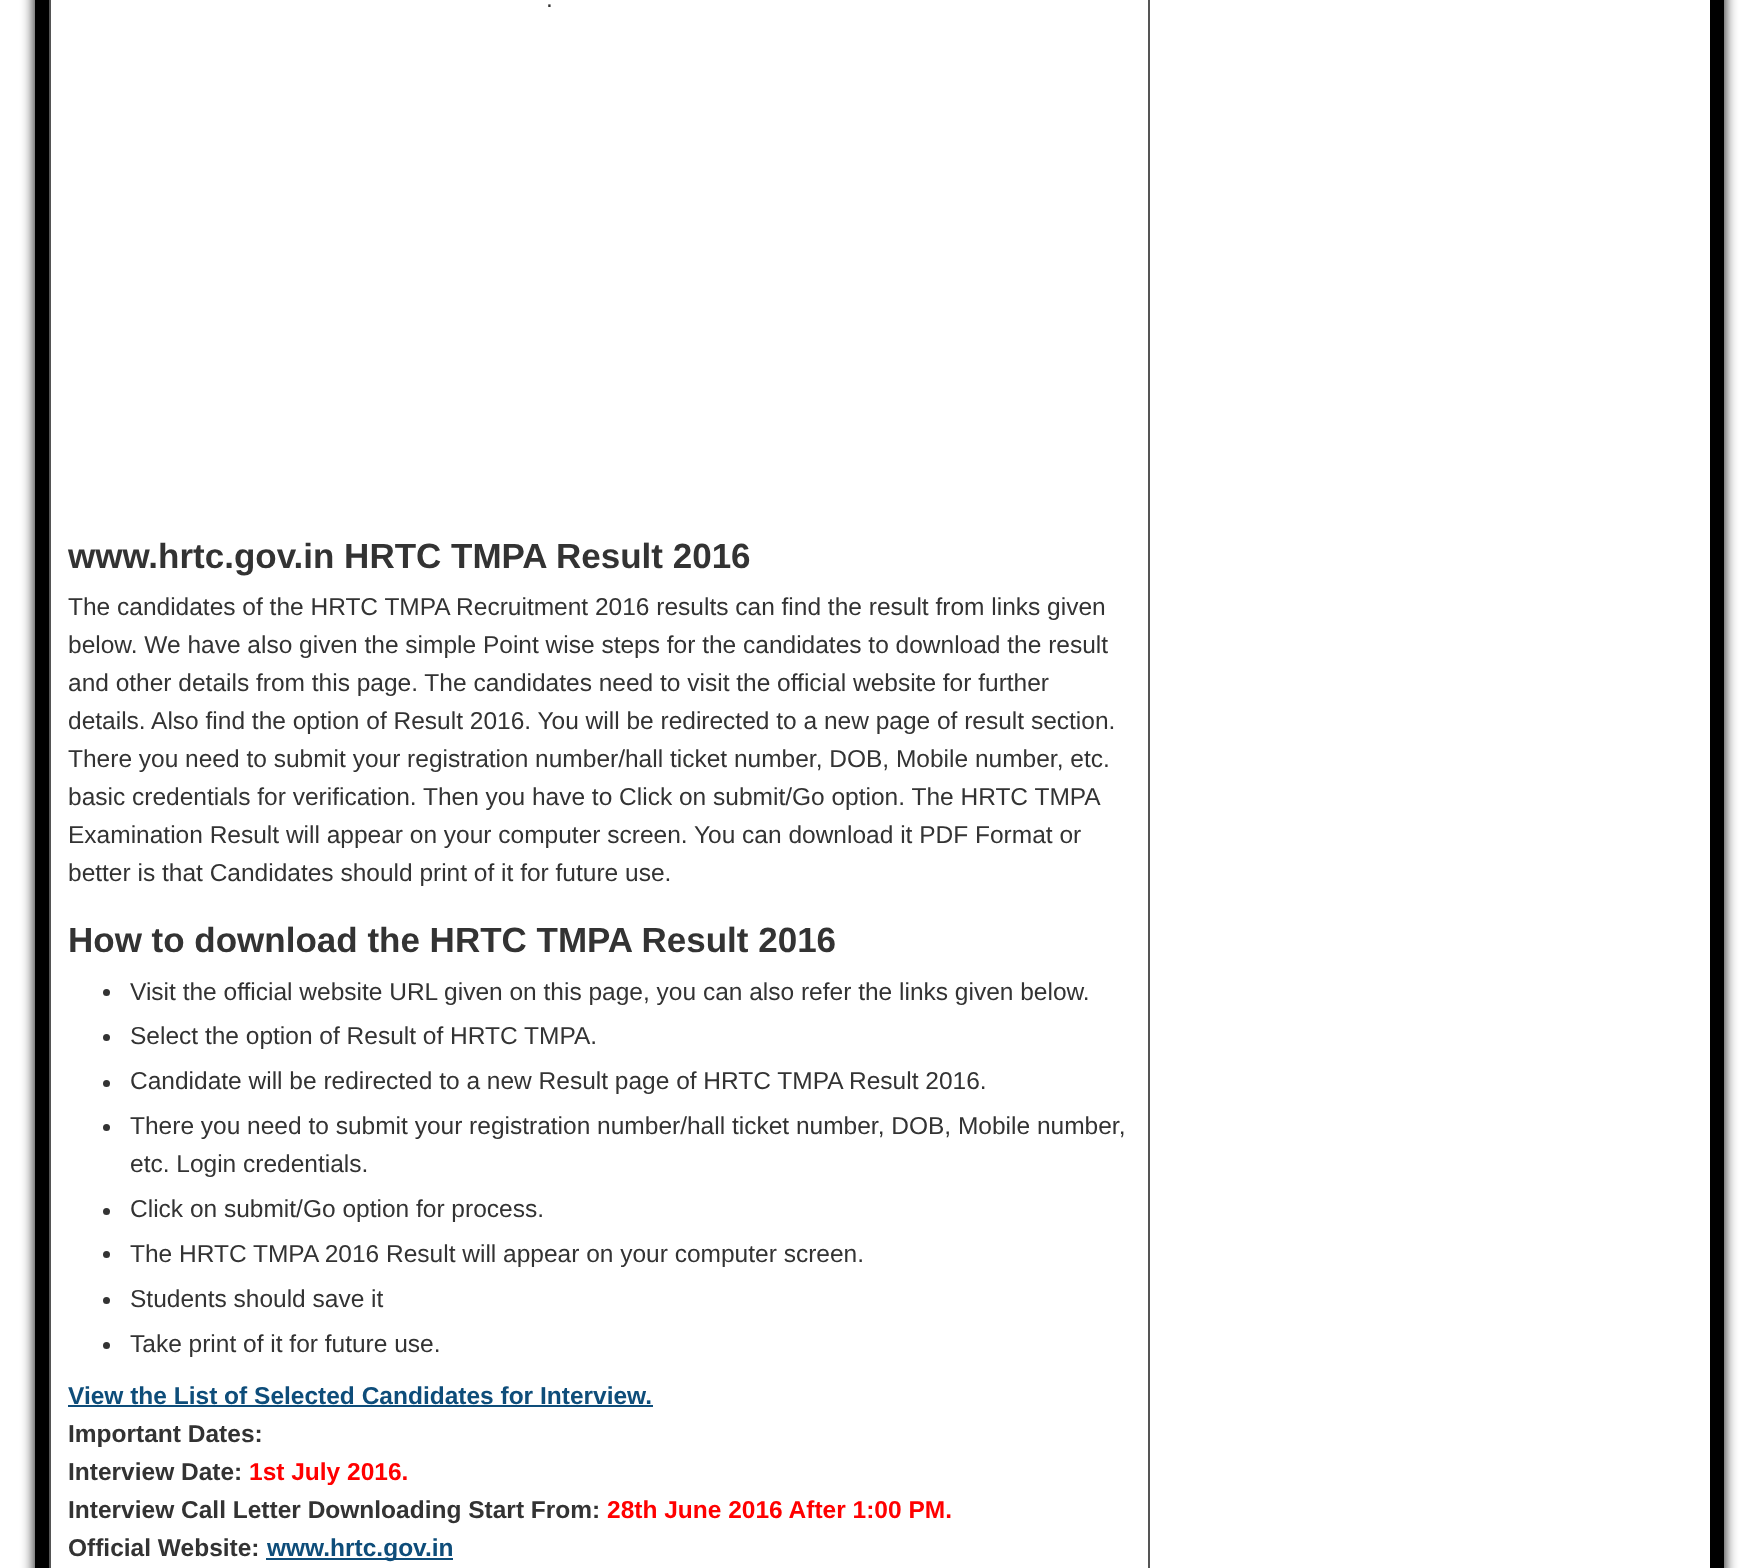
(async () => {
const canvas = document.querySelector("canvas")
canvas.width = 1758
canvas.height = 1568
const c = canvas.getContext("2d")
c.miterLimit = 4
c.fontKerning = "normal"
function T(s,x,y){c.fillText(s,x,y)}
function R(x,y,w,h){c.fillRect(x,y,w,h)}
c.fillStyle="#fff"
R(0,0,1758,1568)
c.fillStyle="#000"
c.filter="blur(7px)"
c.beginPath()
c.rect(35,-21,1689,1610)
c.fill()
c.filter="none"
c.fillStyle="#fff"
R(51,0,1659,1568)
c.strokeStyle="#000"
c.lineWidth=14
c.strokeRect(42,-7,1675,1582)
c.fillStyle="#555"
R(1148,0,2,1568)
R(49,0,2,1568)
c.font="24.5px Liberation Sans"
c.fillStyle="#333"
T(".",546,7)
c.font="bold 35px Liberation Sans"
T("www.hrtc.gov.in HRTC TMPA Result 2016",68,568)
c.font="24.5px Liberation Sans"
T("The candidates of the HRTC TMPA Recruitment 2016 results can find the result from links given",68,615)
T("below. We have also given the simple Point wise steps for the candidates to download the result",68,653)
T("and other details from this page. The candidates need to visit the official website for further",68,691)
T("details. Also find the option of Result 2016. You will be redirected to a new page of result section.",68,729)
T("There you need to submit your registration number/hall ticket number, DOB, Mobile number, etc.",68,767)
T("basic credentials for verification. Then you have to Click on submit/Go option. The HRTC TMPA",68,805)
T("Examination Result will appear on your computer screen. You can download it PDF Format or",68,843)
T("better is that Candidates should print of it for future use.",68,881)
c.font="bold 35px Liberation Sans"
T("How to download the HRTC TMPA Result 2016",68,952)
c.beginPath()
c.arc(106.5,992.5,3.5,0,7)
c.fill()
c.font="24.5px Liberation Sans"
T("Visit the official website URL given on this page, you can also refer the links given below.",130,1000)
c.beginPath()
c.arc(106.5,1037.5,3.5,0,7)
c.fill()
T("Select the option of Result of HRTC TMPA.",130,1044)
c.beginPath()
c.arc(106.5,1083.5,3.5,0,7)
c.fill()
T("Candidate will be redirected to a new Result page of HRTC TMPA Result 2016.",130,1089)
c.beginPath()
c.arc(106.5,1127.5,3.5,0,7)
c.fill()
T("There you need to submit your registration number/hall ticket number, DOB, Mobile number,",130,1134)
T("etc. Login credentials.",130,1172)
c.beginPath()
c.arc(106.5,1211.5,3.5,0,7)
c.fill()
T("Click on submit/Go option for process.",130,1217)
c.beginPath()
c.arc(106.5,1254.5,3.5,0,7)
c.fill()
T("The HRTC TMPA 2016 Result will appear on your computer screen.",130,1262)
c.beginPath()
c.arc(106.5,1300.5,3.5,0,7)
c.fill()
T("Students should save it",130,1307)
c.beginPath()
c.arc(106.5,1345.5,3.5,0,7)
c.fill()
T("Take print of it for future use.",130,1352)
c.font="bold 24.5px Liberation Sans"
c.fillStyle="#0e4d7a"
T("View the List of Selected Candidates for Interview.",68,1404)
R(68,1405,585,2)
c.fillStyle="#333"
T("Important Dates:",68,1442)
T("Interview Date:",68,1480)
c.fillStyle="#f00"
T("1st July 2016.",249,1480)
c.fillStyle="#333"
T("Interview Call Letter Downloading Start From:",68,1518)
c.fillStyle="#f00"
T("28th June 2016 After 1:00 PM.",607,1518)
c.fillStyle="#333"
T("Official Website:",68,1556)
c.fillStyle="#0e4d7a"
R(266,1558,187,2)
T("www.hrtc.gov.in",267,1556)
})()
